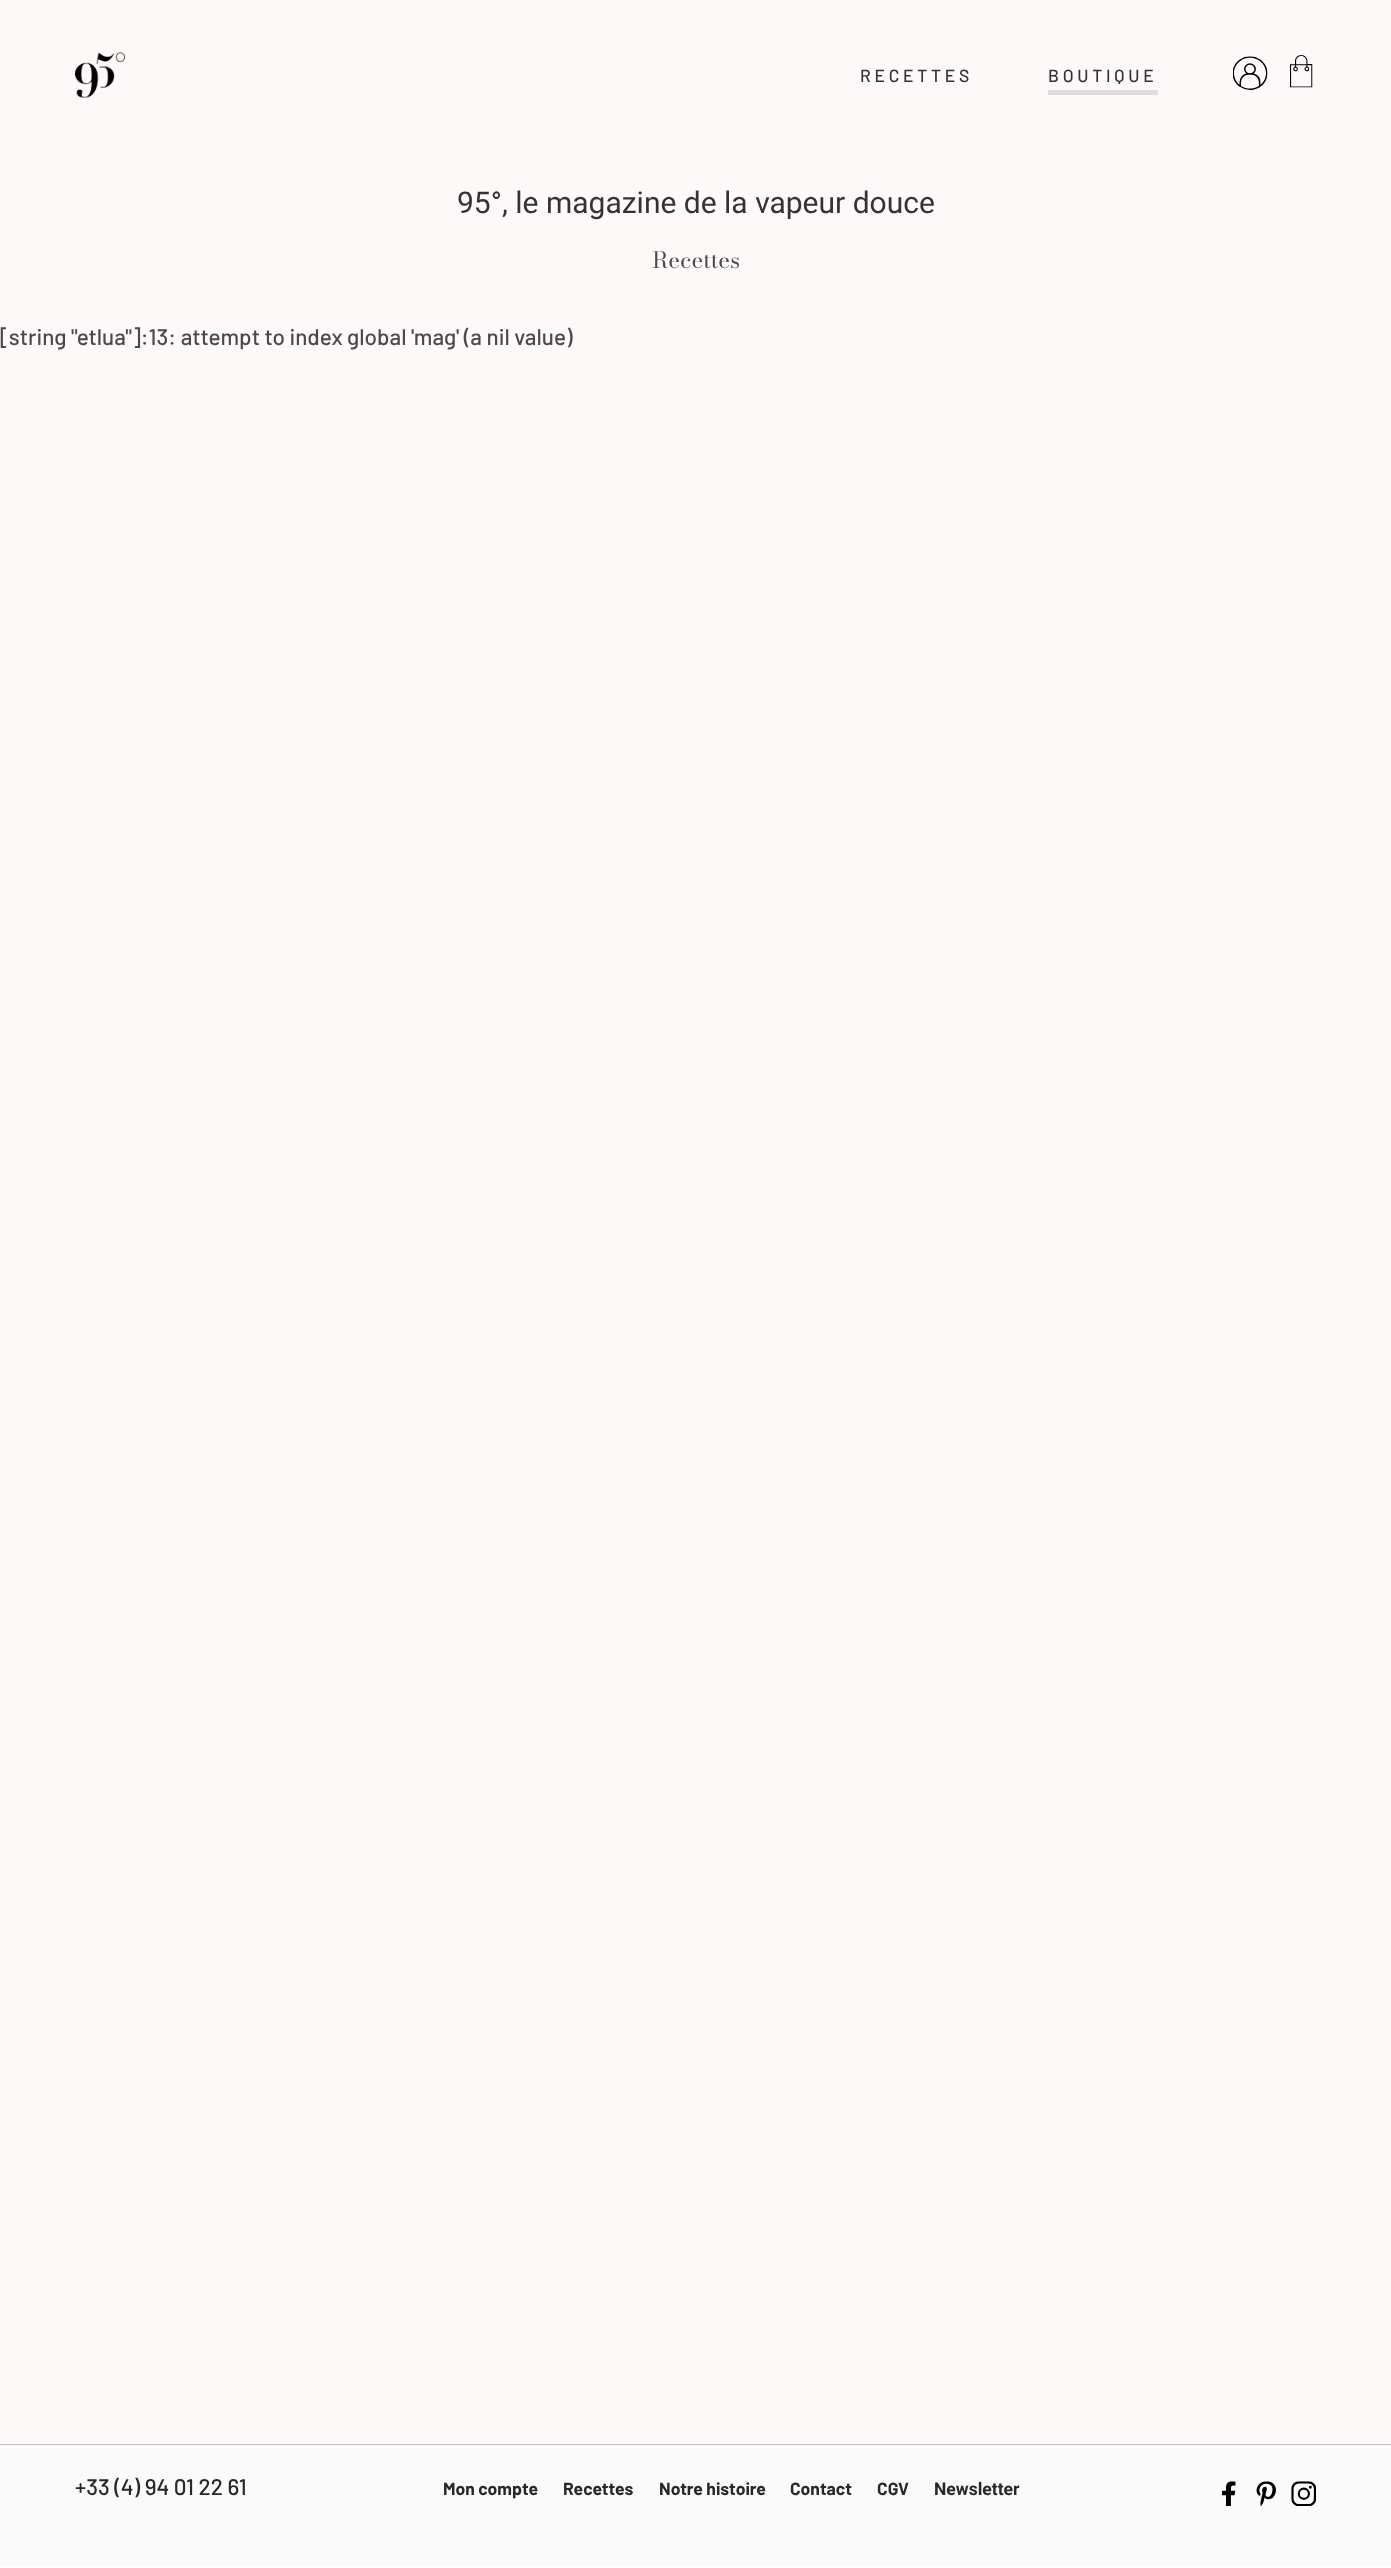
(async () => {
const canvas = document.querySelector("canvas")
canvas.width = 1391
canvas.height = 2568
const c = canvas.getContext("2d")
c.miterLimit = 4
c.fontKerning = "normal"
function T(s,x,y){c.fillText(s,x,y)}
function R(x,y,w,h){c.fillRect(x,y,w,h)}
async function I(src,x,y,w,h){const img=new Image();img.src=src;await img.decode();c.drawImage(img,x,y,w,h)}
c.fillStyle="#fff"
R(0,0,1391,2568)
c.fillStyle="#fcf9f8"
R(0,0,1391,2444)
await I("1.png",75,52,50,46)
c.letterSpacing="3.75px"
c.font="500 17.5px Barlow"
c.fillStyle="#333"
T("RECETTES",860,82)
T("BOUTIQUE",1048,82)
c.fillStyle="#dfdcdb"
R(1048,90,110,5)
await I("2.png",1233,56,35,34)
await I("3.png",1290,55,23,33)
c.letterSpacing="0px"
c.font="30px Roboto"
c.fillStyle="#333"
T("95°, le magazine de la vapeur douce",457,213)
c.font="22.5px Bodoni Moda"
c.fillStyle="#4a4a4a"
T("Recettes",652,268)
c.font="500 22.5px Barlow"
T("[string \"etlua\"]:13: attempt to index global 'mag' (a nil value)",0,345)
c.fillStyle="#fafafa"
R(0,2445,1391,121)
c.fillStyle="#c1bebd"
R(0,2444,1391,1)
c.fillStyle="#2a2726"
T("+33 (4) 94 01 22 61",75,2495)
c.font="bold 17.5px Barlow"
T("Mon compte",443,2495)
T("Recettes",563,2495)
T("Notre histoire",659,2495)
T("Contact",790,2495)
T("CGV",877,2495)
c.font="bold 17.5px Roboto"
T("Newsletter",934,2495)
await I("4.png",1222,2481,14,25)
await I("5.png",1256,2481,20,25)
await I("6.png",1291,2481,25,25)
})()
